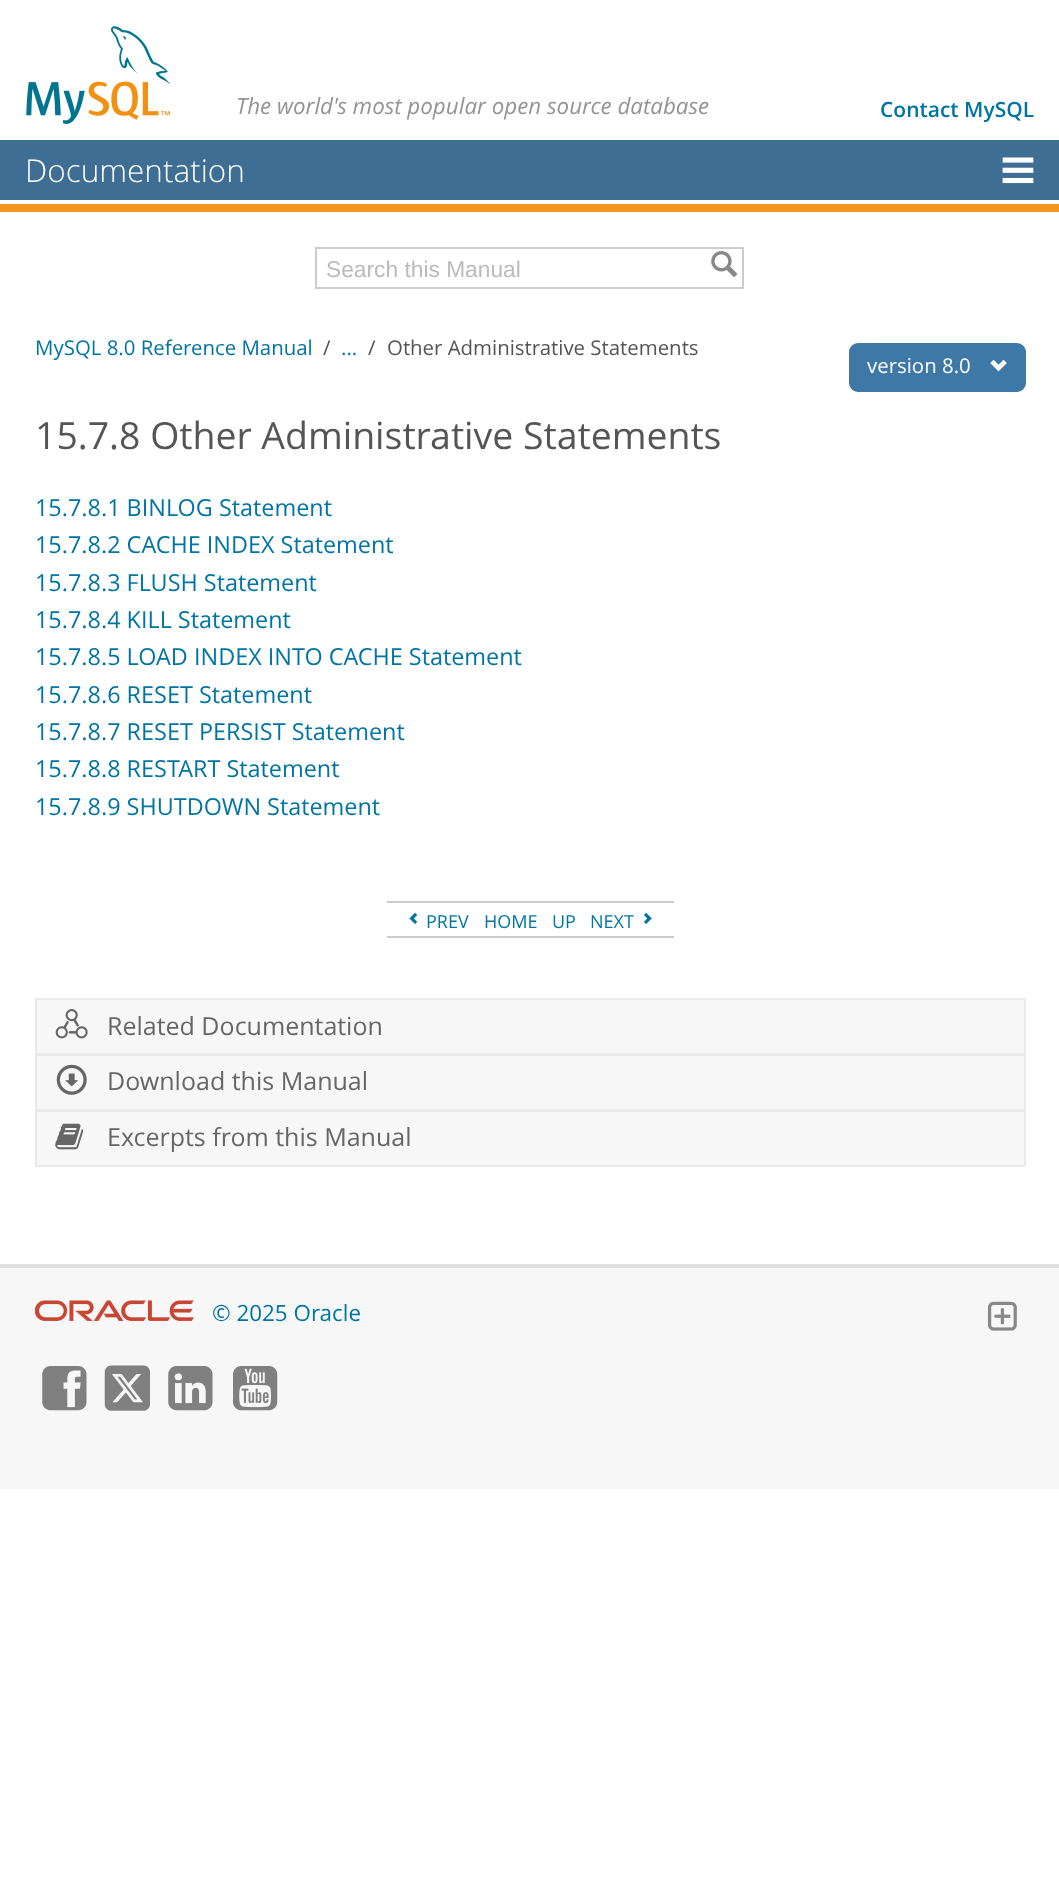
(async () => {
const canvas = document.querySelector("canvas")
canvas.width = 1059
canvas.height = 1888
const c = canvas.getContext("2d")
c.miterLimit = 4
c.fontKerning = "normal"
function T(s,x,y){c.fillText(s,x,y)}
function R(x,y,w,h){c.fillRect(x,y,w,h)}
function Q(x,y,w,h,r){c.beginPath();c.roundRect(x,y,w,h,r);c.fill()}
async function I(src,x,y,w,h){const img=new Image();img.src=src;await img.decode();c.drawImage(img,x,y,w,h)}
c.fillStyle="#fff"
R(0,0,1059,1888)
await I("1.png",26,26,144,98)
c.font="italic 22.4px Open Sans"
c.fillStyle="#949494"
T("The world's most popular open source database",236,114)
c.font="600 21px Open Sans"
c.fillStyle="#0074a3"
T("Contact MySQL",880,117)
c.fillStyle="#3e6e93"
R(0,140,1059,60)
c.font="300 31.5px Open Sans"
c.fillStyle="#fff"
T("Documentation",25,182)
await I("2.png",1002,157,32,27)
c.fillStyle="#f59620"
R(0,204,1059,8)
c.strokeStyle="#ccc"
c.lineWidth=2
c.strokeRect(316,248,427,40)
c.font="22.75px Liberation Sans"
c.fillStyle="#bbb"
T("Search this Manual",326,277)
await I("3.png",711,251,27,26)
c.font="20.4px Open Sans"
c.fillStyle="#0074a3"
T("MySQL 8.0 Reference Manual",35,355)
c.fillStyle="#555"
T("/",323,355)
c.fillStyle="#0074a3"
T("...",341,355)
c.fillStyle="#555"
T("/",368,355)
T("Other Administrative Statements",387,355)
c.fillStyle="#3e78a6"
Q(849,343,177,49,9)
c.fillStyle="#fff"
T("version 8.0",867,373)
await I("4.png",990,359,17,13)
c.font="37.4px Open Sans"
c.fillStyle="#555"
T("15.7.8 Other Administrative Statements",35,449)
c.font="23.4px Open Sans"
c.fillStyle="#0074a3"
T("15.7.8.1 BINLOG Statement",35,516)
T("15.7.8.2 CACHE INDEX Statement",35,553)
T("15.7.8.3 FLUSH Statement",35,591)
T("15.7.8.4 KILL Statement",35,628)
T("15.7.8.5 LOAD INDEX INTO CACHE Statement",35,665)
T("15.7.8.6 RESET Statement",35,703)
T("15.7.8.7 RESET PERSIST Statement",35,740)
T("15.7.8.8 RESTART Statement",35,777)
T("15.7.8.9 SHUTDOWN Statement",35,815)
c.fillStyle="#ccc"
R(387,901,287,2)
R(387,936,287,2)
await I("5.png",409,912,9,12)
c.font="18px Open Sans"
c.fillStyle="#0074a3"
T("PREV",426,928)
T("HOME",484,928)
T("UP",552,928)
T("NEXT",590,928)
await I("6.png",643,912,9,12)
c.fillStyle="#f7f7f7"
c.beginPath()
c.rect(36,999,989,55)
c.fill()
c.strokeStyle="#e9eaeb"
c.stroke()
await I("7.png",55,1009,33,30)
c.font="25px Open Sans"
c.fillStyle="#666"
T("Related Documentation",107,1035)
c.fillStyle="#f7f7f7"
c.beginPath()
c.rect(36,1055,989,55)
c.fill()
c.stroke()
await I("8.png",56,1064,31,31)
c.fillStyle="#666"
T("Download this Manual",107,1090)
c.fillStyle="#f7f7f7"
c.beginPath()
c.rect(36,1111,989,55)
c.fill()
c.stroke()
await I("9.png",55,1123,29,27)
c.fillStyle="#666"
T("Excerpts from this Manual",107,1146)
c.fillStyle="#f7f7f7"
R(0,1268,1059,221)
c.fillStyle="#e1e1e1"
R(0,1264,1059,4)
await I("10.png",35,1300,159,21)
c.font="22.4px Open Sans"
c.fillStyle="#0074a3"
T("© 2025 Oracle",212,1321)
await I("11.png",987,1301,30,30)
await I("12.png",42,1366,45,45)
await I("13.png",104,1365,46,46)
await I("14.png",168,1366,45,45)
await I("15.png",233,1366,45,45)
})()
